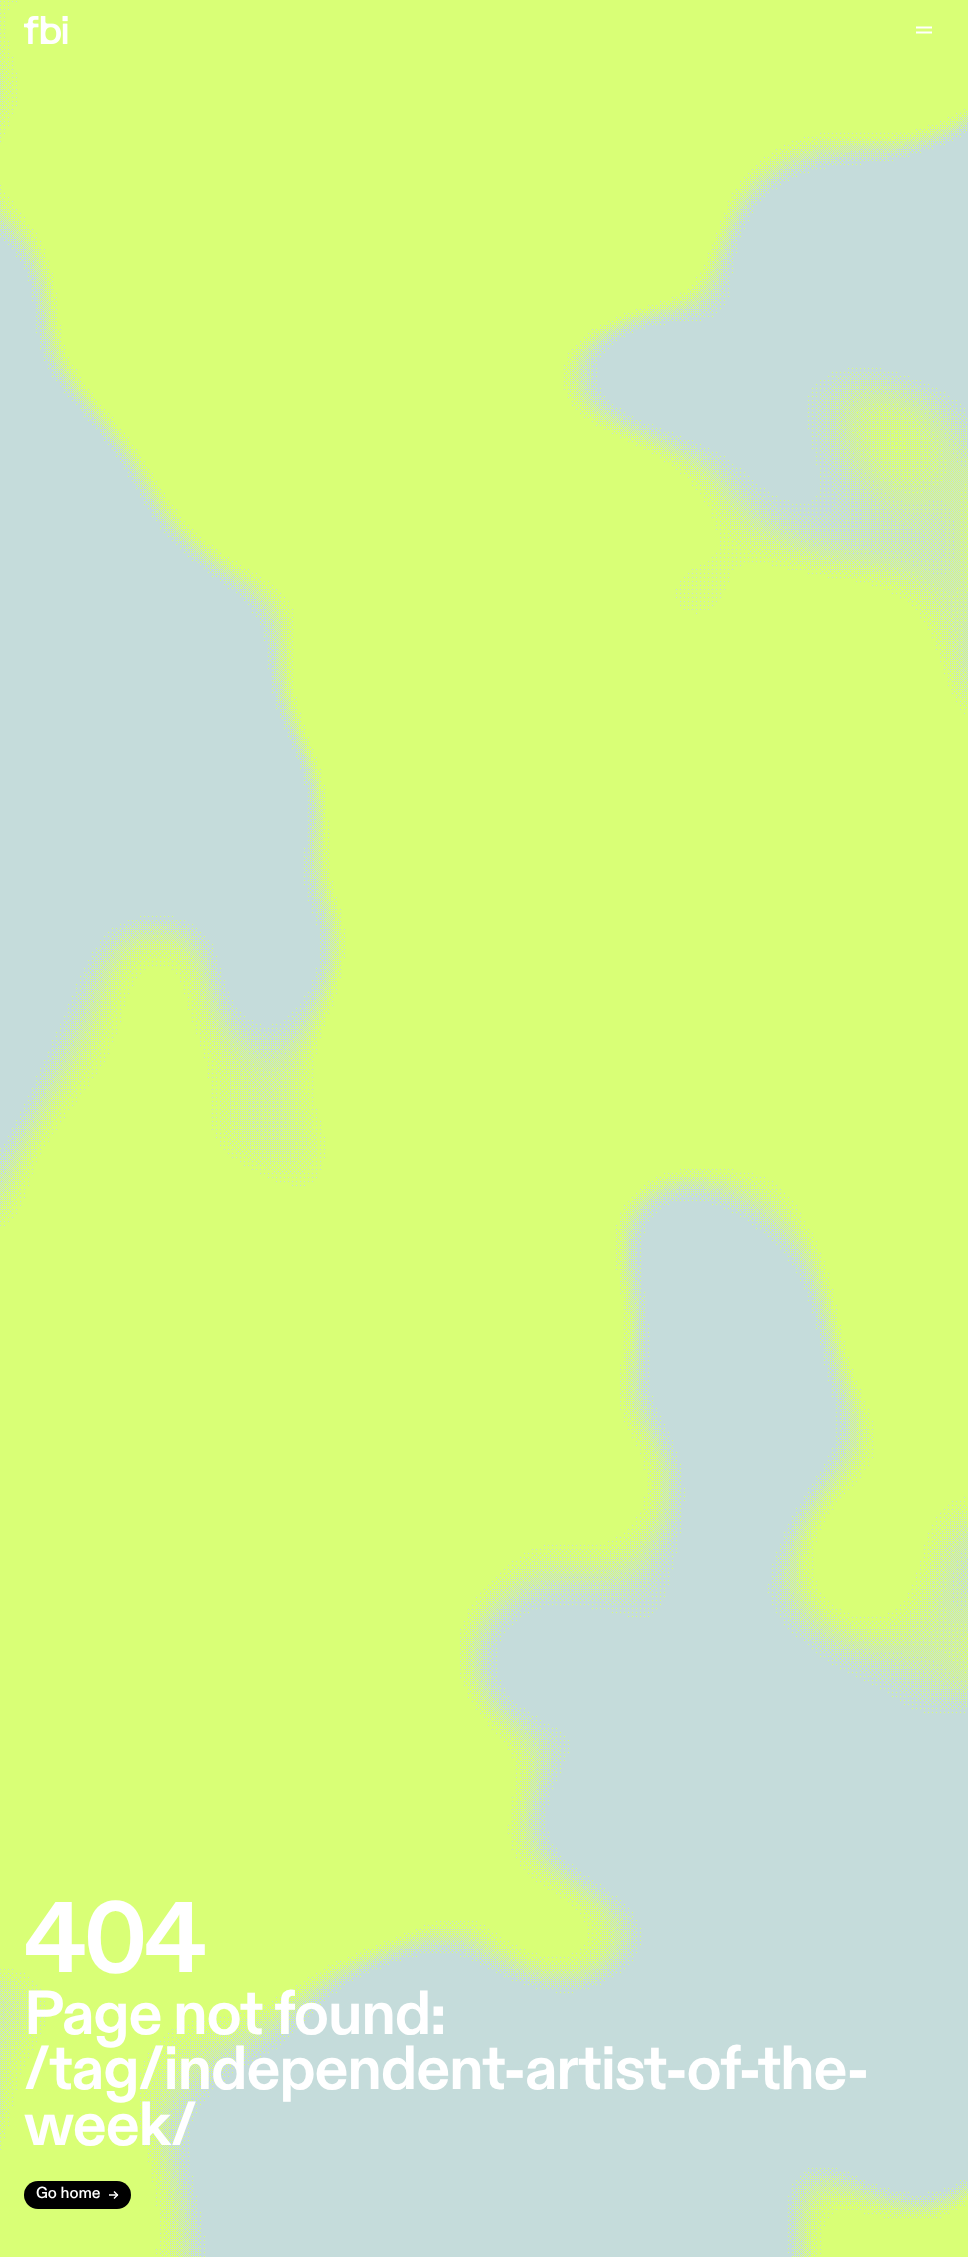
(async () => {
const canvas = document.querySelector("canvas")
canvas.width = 968
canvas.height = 2257
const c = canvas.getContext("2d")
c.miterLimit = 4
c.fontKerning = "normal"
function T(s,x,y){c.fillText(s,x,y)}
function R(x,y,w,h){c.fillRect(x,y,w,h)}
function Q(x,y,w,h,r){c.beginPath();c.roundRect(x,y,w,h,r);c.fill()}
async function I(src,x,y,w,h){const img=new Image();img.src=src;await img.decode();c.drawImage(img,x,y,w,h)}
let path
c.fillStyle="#fff"
R(0,0,968,2257)
await I("1.png",0,0,968,2257)
await I("2.png",24,16,44,28)
path = new Path2D("M916 27.5h16m-16 5h16")
c.strokeStyle="#fff"
c.lineWidth=1.8
c.stroke(path)
c.letterSpacing="-3px"
c.font="bold 100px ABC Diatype"
T("404",24,1972)
c.letterSpacing="-1.25px"
c.font="bold 62px ABC Diatype"
T("Page not found:",24,2034)
T("/tag/independent-artist-of-the-",24,2089)
T("week/",24,2145)
c.fillStyle="#000"
Q(24,2181,107,28,14)
c.letterSpacing="0px"
c.font="500 16px ABC Diatype"
c.fillStyle="#fff"
T("Go home",36,2198)
c.fillStyle="#bfbfbf"
R(109,2194,9,2)
path = new Path2D("M114 2191.5l3.5 3.5l-3.5 3.5")
c.lineWidth=1.5
c.lineJoin="round"
c.stroke(path)
})()
